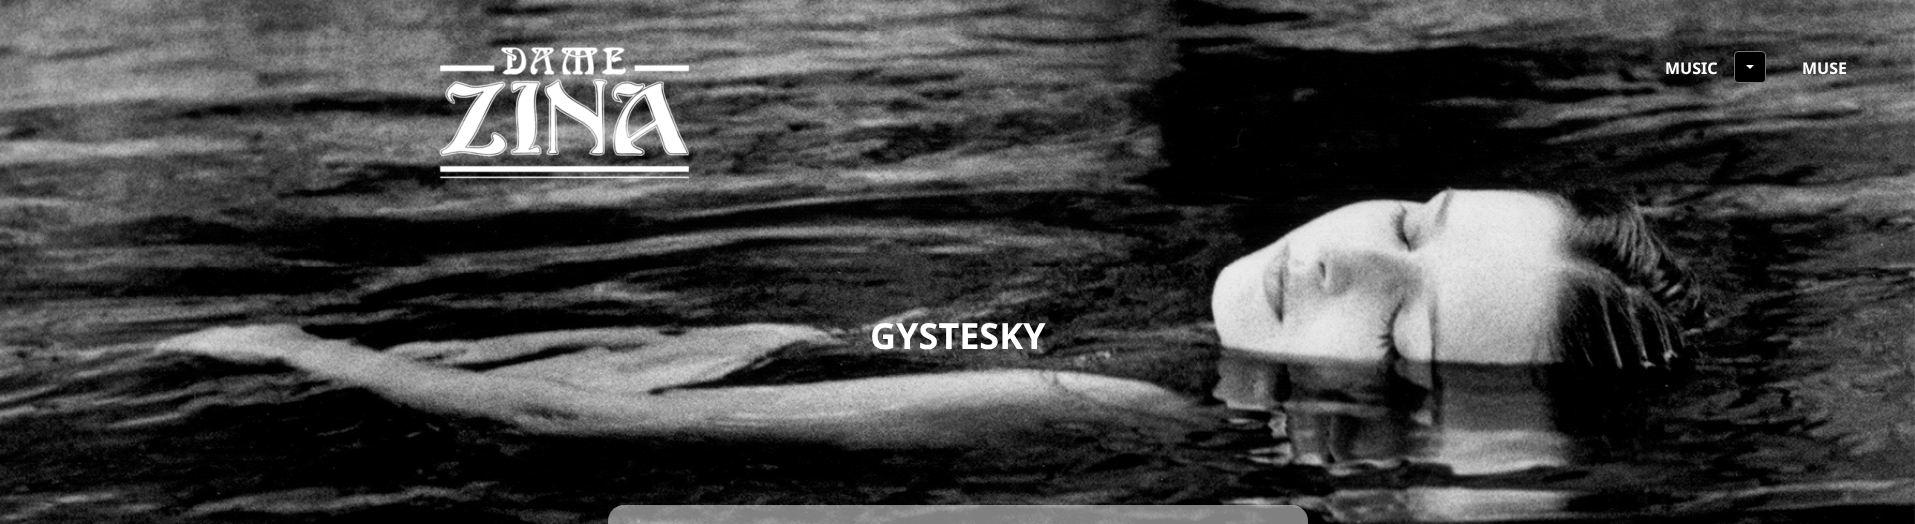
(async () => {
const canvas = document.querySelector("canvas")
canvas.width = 1915
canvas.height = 524
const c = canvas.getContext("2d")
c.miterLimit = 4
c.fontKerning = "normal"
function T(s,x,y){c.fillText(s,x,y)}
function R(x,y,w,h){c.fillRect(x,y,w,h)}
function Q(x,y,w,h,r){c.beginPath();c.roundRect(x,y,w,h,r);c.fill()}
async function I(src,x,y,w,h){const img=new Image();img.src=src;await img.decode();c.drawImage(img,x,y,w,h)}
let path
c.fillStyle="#fff"
R(0,0,1915,524)
await I("1.png",0,0,1915,524)
await I("2.png",439,47,251,132)
c.font="bold 16px Noto Sans"
T("MUSIC",1665,74)
c.fillStyle="#000"
c.beginPath()
c.roundRect(1734.5,51.5,31,31,3.5)
c.fill()
c.strokeStyle="#777"
c.stroke()
c.fillStyle="#fff"
path = new Path2D("M1746 65h8l-4 4z")
c.fill(path)
T("MUSE",1802,74)
c.font="bold 36px Noto Sans"
T("GYSTESKY",870,349)
c.fillStyle="#ffffff80"
Q(608,505,700,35,16)
})()
